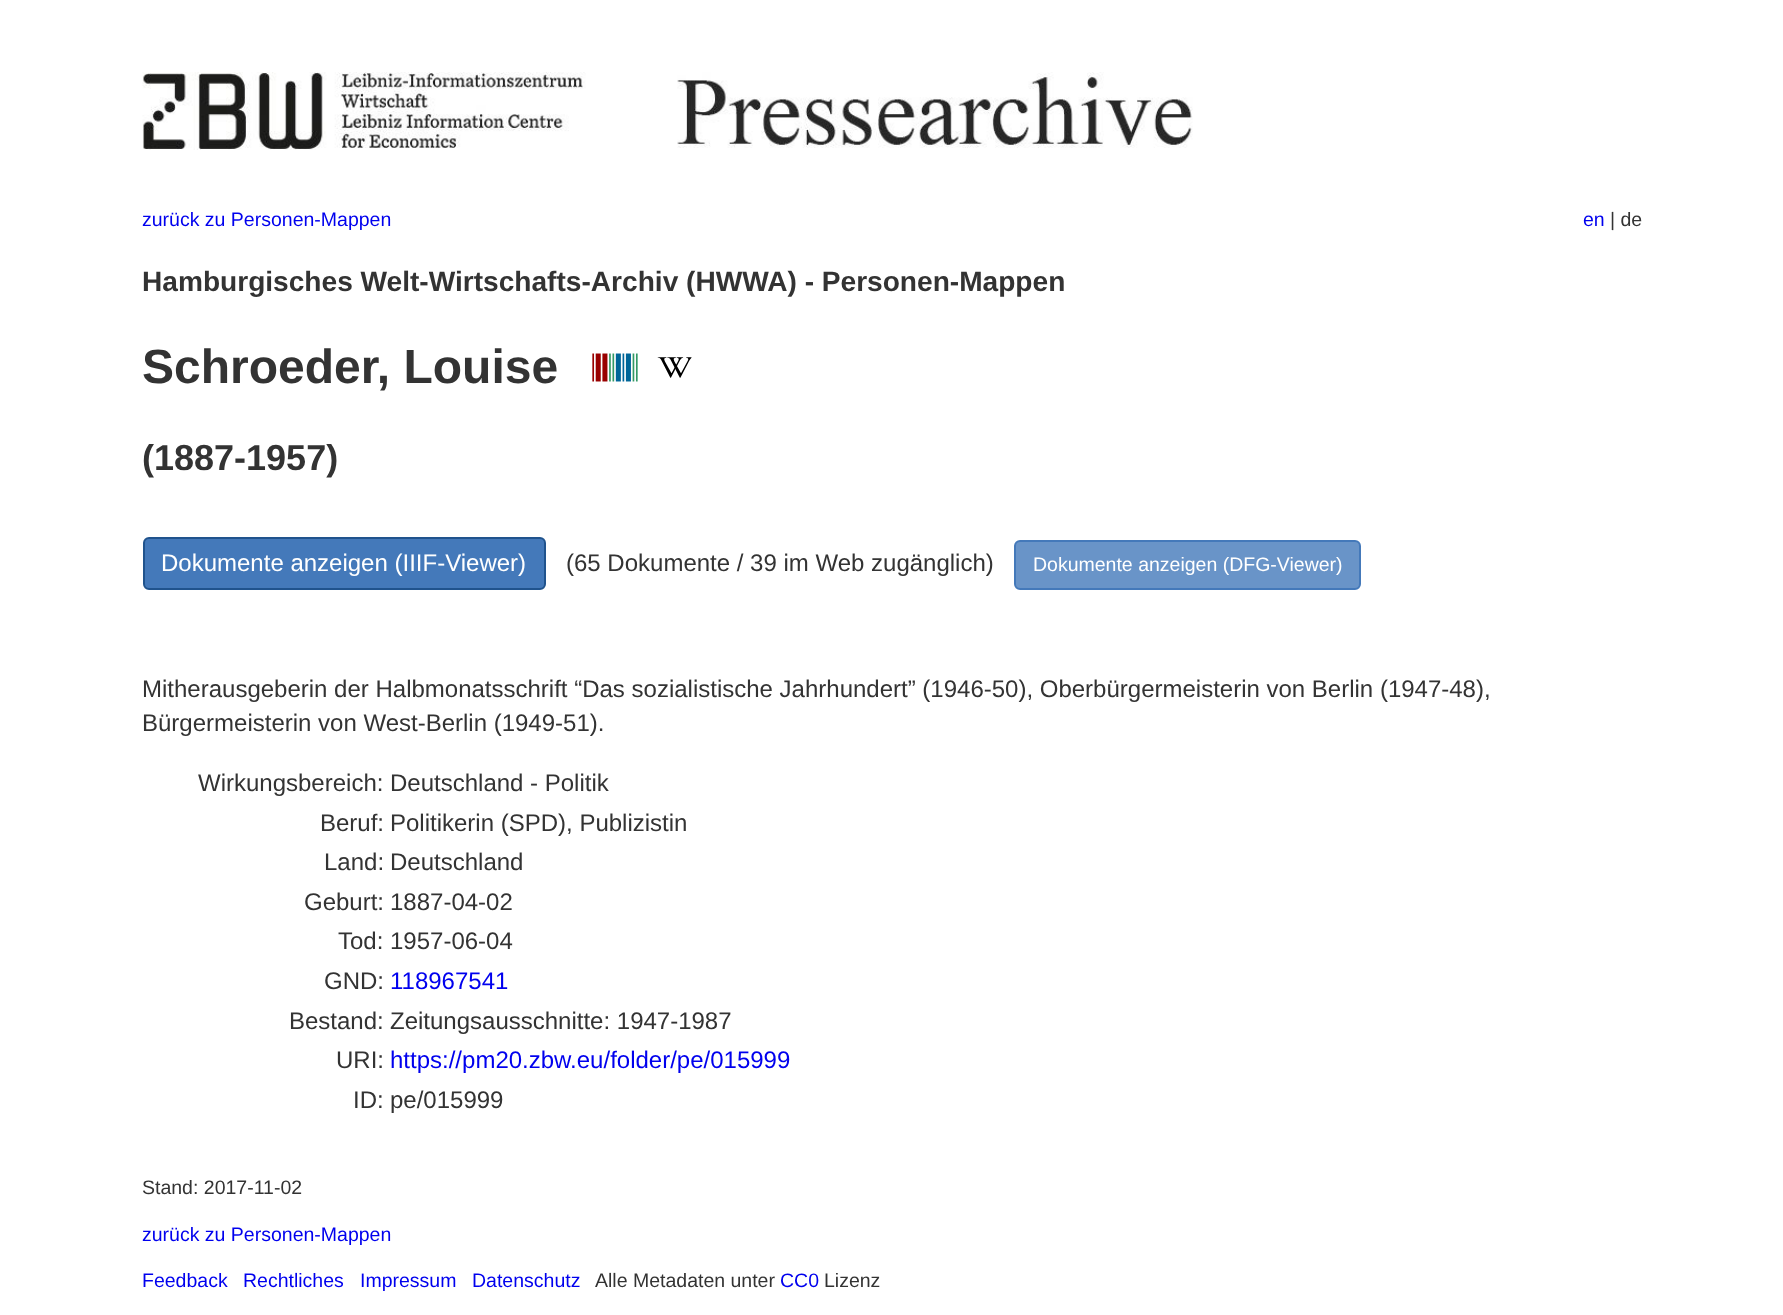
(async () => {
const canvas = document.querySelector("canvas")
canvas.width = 1783
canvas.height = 1315
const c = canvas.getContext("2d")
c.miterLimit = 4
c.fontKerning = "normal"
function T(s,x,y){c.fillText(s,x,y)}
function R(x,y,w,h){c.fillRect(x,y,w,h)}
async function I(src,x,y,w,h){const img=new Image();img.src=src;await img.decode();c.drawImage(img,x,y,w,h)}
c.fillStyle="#fff"
R(0,0,1783,1315)
await I("1.png",142,72,1051,78)
c.font="19.5px Liberation Sans"
c.fillStyle="#00e"
T("zurück zu Personen-Mappen",142,226)
T("en",1583,226)
c.fillStyle="#333"
T("| de",1610,226)
c.font="bold 28.1px Liberation Sans"
T("Hamburgisches Welt-Wirtschafts-Archiv (HWWA) - Personen-Mappen",142,291)
c.font="bold 48px Liberation Sans"
T("Schroeder, Louise",142,383)
await I("2.png",592,353,46,29)
await I("3.png",657,357,35,21)
c.font="bold 36px Liberation Sans"
T("(1887-1957)",142,470)
c.fillStyle="#4479ba"
c.beginPath()
c.roundRect(144,538,401,51,5)
c.fill()
c.strokeStyle="#20538d"
c.lineWidth=2
c.stroke()
c.font="24px Liberation Sans"
c.fillStyle="#fff"
T("Dokumente anzeigen (IIIF-Viewer)",161,571)
c.fillStyle="#333"
T("(65 Dokumente / 39 im Web zugänglich)",566,571)
c.fillStyle="#6994c8"
c.beginPath()
c.roundRect(1015,541,345,48,5)
c.fill()
c.strokeStyle="#4479ba"
c.stroke()
c.font="19.5px Liberation Sans"
c.fillStyle="#fff"
T("Dokumente anzeigen (DFG-Viewer)",1033,571)
c.font="24px Liberation Sans"
c.fillStyle="#333"
T("Mitherausgeberin der Halbmonatsschrift “Das sozialistische Jahrhundert” (1946-50), Oberbürgermeisterin von Berlin (1947-48),",142,697)
T("Bürgermeisterin von West-Berlin (1949-51).",142,731)
T("Wirkungsbereich:",198,791)
T("Deutschland - Politik",390,791)
T("Beruf:",320,831)
T("Politikerin (SPD), Publizistin",390,831)
T("Land:",324,870)
T("Deutschland",390,870)
T("Geburt:",304,910)
T("1887-04-02",390,910)
T("Tod:",338,949)
T("1957-06-04",390,949)
T("GND:",324,989)
c.fillStyle="#00e"
T("118967541",390,989)
c.fillStyle="#333"
T("Bestand:",289,1029)
T("Zeitungsausschnitte: 1947-1987",390,1029)
T("URI:",336,1068)
c.fillStyle="#00e"
T("https://pm20.zbw.eu/folder/pe/015999",390,1068)
c.fillStyle="#333"
T("ID:",353,1108)
T("pe/015999",390,1108)
c.font="19.5px Liberation Sans"
T("Stand: 2017-11-02",142,1194)
c.fillStyle="#00e"
T("zurück zu Personen-Mappen",142,1241)
T("Feedback",142,1287)
T("Rechtliches",243,1287)
T("Impressum",360,1287)
T("Datenschutz",472,1287)
c.fillStyle="#333"
T("Alle Metadaten unter",595,1287)
c.fillStyle="#00e"
T("CC0",780,1287)
c.fillStyle="#333"
T("Lizenz",824,1287)
})()
